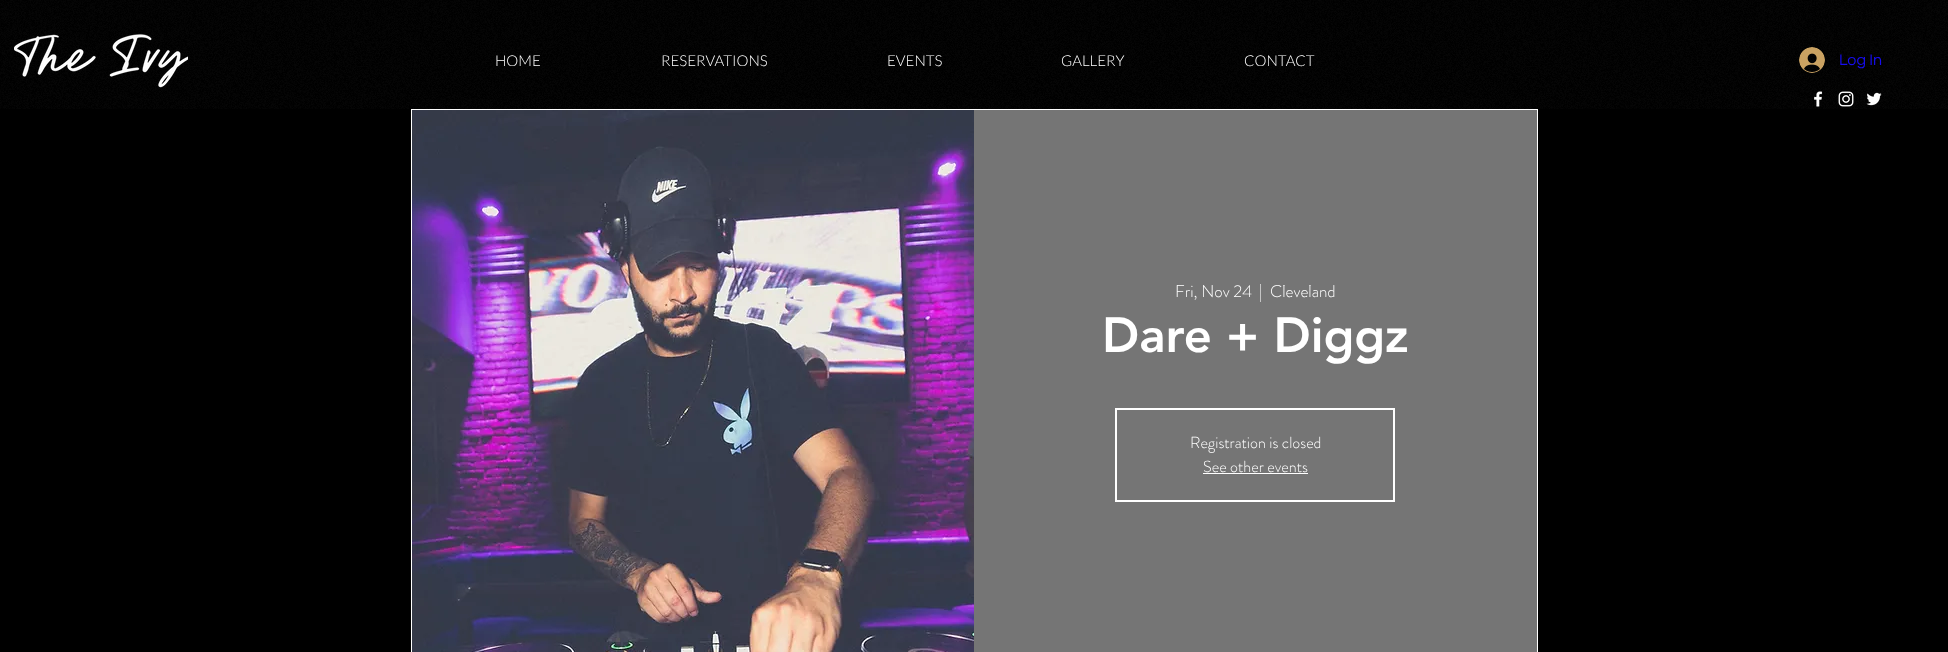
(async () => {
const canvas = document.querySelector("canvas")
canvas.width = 1948
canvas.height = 652
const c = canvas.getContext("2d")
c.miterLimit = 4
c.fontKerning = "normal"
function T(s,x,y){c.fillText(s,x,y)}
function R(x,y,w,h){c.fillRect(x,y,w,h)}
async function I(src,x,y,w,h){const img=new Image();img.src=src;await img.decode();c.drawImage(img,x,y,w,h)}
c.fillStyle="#000"
R(0,0,1948,652)
await I("1.png",0,0,1948,109)
await I("2.png",14,34,174,54)
c.font="300 15px Lato"
c.fillStyle="#fff"
T("HOME",495,66)
T("RESERVATIONS",661,66)
T("EVENTS",887,66)
T("GALLERY",1061,66)
T("CONTACT",1244,66)
await I("3.png",1799,47,26,26)
c.font="16px Questrial"
c.fillStyle="#170df2"
T("Log In",1839,65)
await I("4.png",1814,91,9,16)
await I("5.png",1838,91,16,16)
await I("6.png",1866,92,16,14)
c.strokeStyle="#fff"
c.strokeRect(411.5,109.5,1126,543)
await I("7.png",412,110,562,542)
c.fillStyle="#757575"
R(974,110,563,542)
c.font="300 17px 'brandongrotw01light'"
c.fillStyle="#fff"
T("Fri, Nov 24",1175,297)
T("|",1259,297)
T("Cleveland",1270,297)
c.font="900 49px 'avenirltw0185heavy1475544'"
T("Dare + Diggz",1102,352)
c.lineWidth=2
c.strokeRect(1116,409,278,92)
c.font="300 16px 'brandongrotw01light'"
T("Registration is closed",1190,448)
T("See other events",1203,472)
R(1203,473,105,1)
})()
